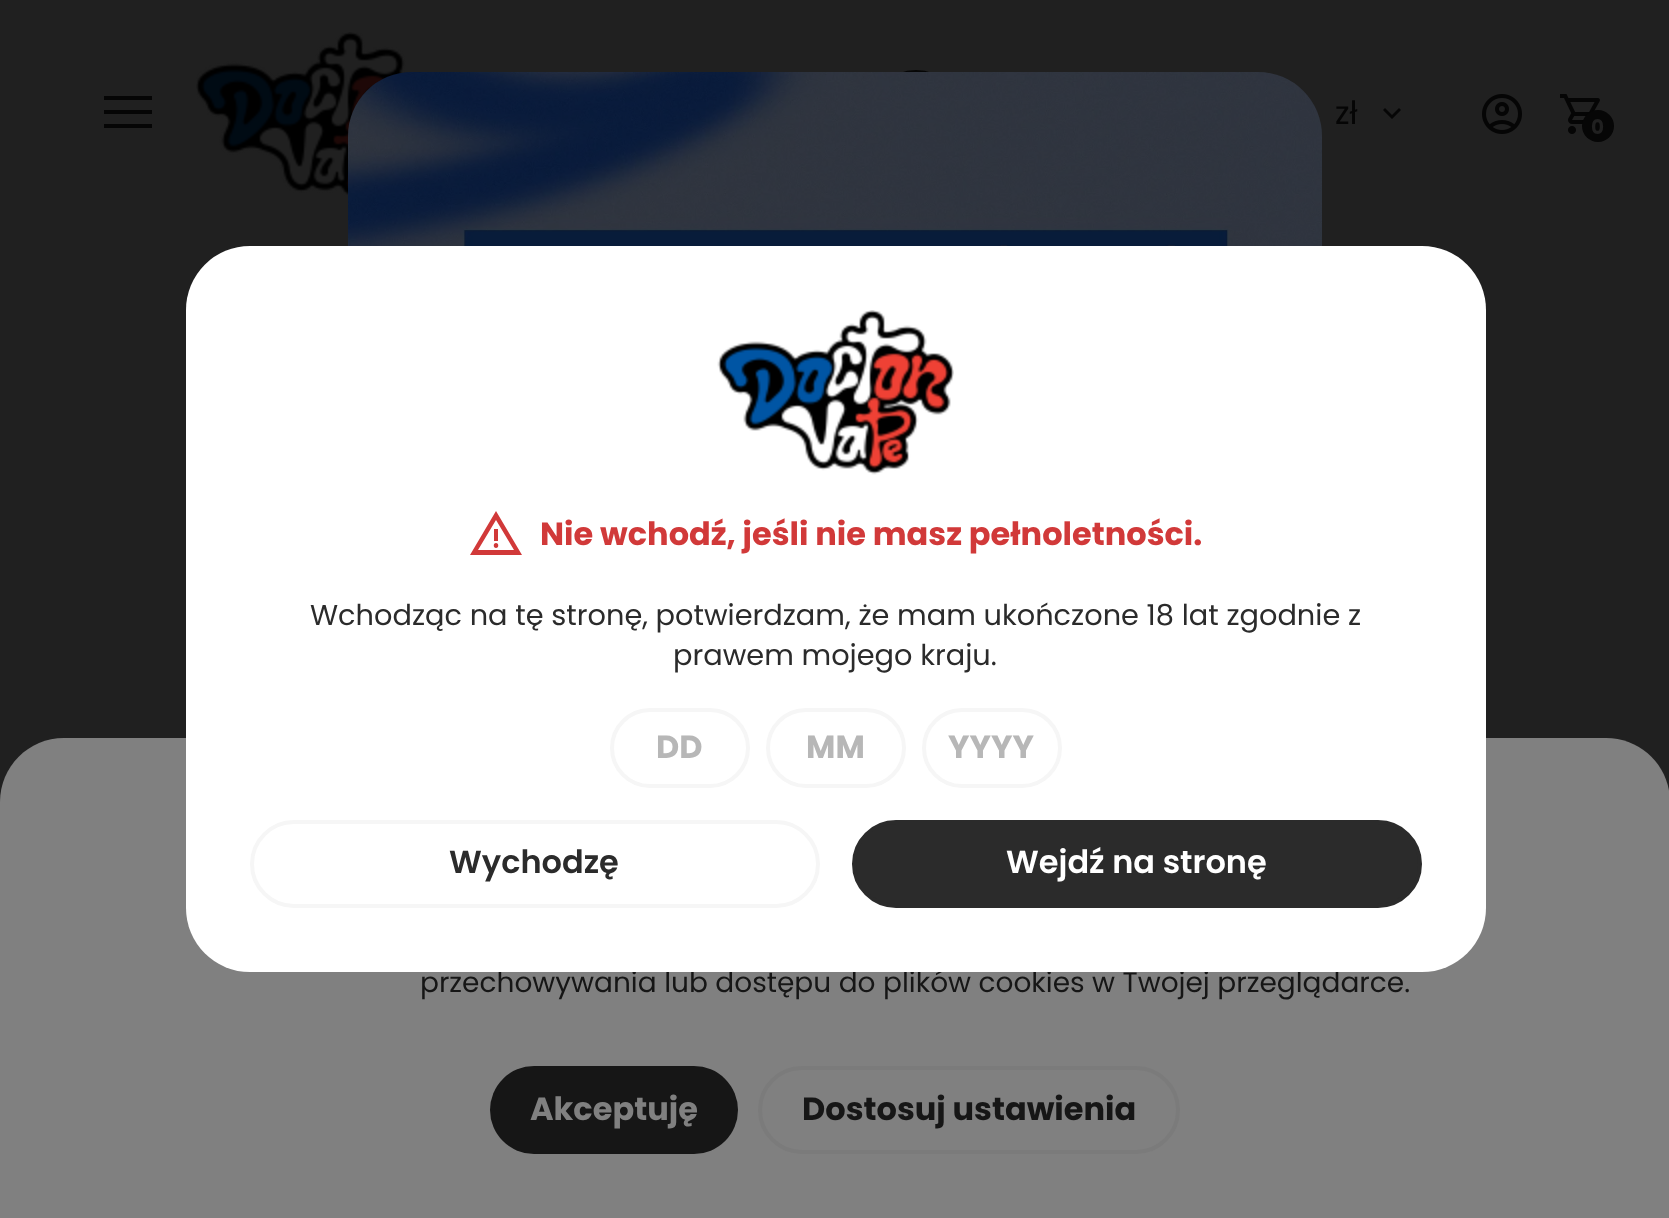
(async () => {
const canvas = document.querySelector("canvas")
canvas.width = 1669
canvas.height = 1218
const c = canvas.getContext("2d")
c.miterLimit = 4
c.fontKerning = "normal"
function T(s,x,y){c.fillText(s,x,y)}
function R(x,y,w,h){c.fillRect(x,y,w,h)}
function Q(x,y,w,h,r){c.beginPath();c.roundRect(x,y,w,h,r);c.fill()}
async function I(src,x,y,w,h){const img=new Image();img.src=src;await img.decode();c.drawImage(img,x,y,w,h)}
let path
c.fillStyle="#202020"
R(0,0,1669,1218)
c.fillStyle="#050505"
R(104,110,48,4)
R(104,96,48,4)
R(104,124,48,4)
await I("1.png",196,32,210,164)
c.beginPath()
c.arc(916,114,42,0,7)
c.strokeStyle="#060606"
c.lineWidth=4
c.stroke()
c.font="32px Poppins"
T("zł",1335,124)
c.fillStyle="#060606"
path = new Path2D("M1392 119l-9-9l2-2l7 7l7-7l2 2z")
c.fill(path)
await I("2.png",1482,94,40,40)
await I("3.png",1560,94,40,40)
c.beginPath()
c.arc(1598,126,16,0,7)
c.fill()
c.font="bold 20px Poppins"
c.fillStyle="#202020"
T("0",1591,134)
await I("4.png",348,72,974,174)
c.fillStyle="#808080"
path = new Path2D("M64 738h1542c35.5 0 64 28.5 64 64v416h-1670v-416c0-35.5 28.5-64 64-64z")
c.fill(path)
c.font="28px Poppins"
c.fillStyle="#161616"
T("przechowywania lub dostępu do plików cookies w Twojej przeglądarce.",420,992)
Q(490,1066,248,88,44)
c.font="bold 32px Poppins"
c.fillStyle="#808080"
T("Akceptuję",530,1120)
c.beginPath()
c.roundRect(760,1068,418,84,42)
c.strokeStyle="#7b7b7b"
c.stroke()
c.fillStyle="#161616"
T("Dostosuj ustawienia",802,1120)
c.fillStyle="#fff"
Q(186,246,1300,726,64)
await I("5.png",717,310,237,165)
c.fillStyle="#d13939"
path = new Path2D("M470 555l26-44l26 44zm8-5h36l-18-30zm18-2c3 0 3-5 0-5c-3 0-3 5 0 5zm-2-7h4v-12h-4zm2-6z")
c.fill(path)
T("Nie wchodź, jeśli nie masz pełnoletności.",540,545)
c.font="28.8px Poppins"
c.fillStyle="#2b2b2b"
T("Wchodząc na tę stronę, potwierdzam, że mam ukończone 18 lat zgodnie z",310,625)
T("prawem mojego kraju.",673,665)
c.beginPath()
c.roundRect(612,710,136,76,38)
c.strokeStyle="#f6f6f6"
c.stroke()
c.font="bold 32px Poppins"
c.fillStyle="#b7b7b7"
T("DD",656,758)
c.beginPath()
c.roundRect(768,710,136,76,38)
c.stroke()
T("MM",806,758)
c.beginPath()
c.roundRect(924,710,136,76,38)
c.stroke()
T("YYYY",948,758)
c.beginPath()
c.roundRect(252,822,566,84,42)
c.stroke()
c.font="600 32px Poppins"
c.fillStyle="#2b2b2b"
T("Wychodzę",449,873)
c.beginPath()
c.roundRect(854,822,566,84,42)
c.fill()
c.strokeStyle="#2b2b2b"
c.stroke()
c.fillStyle="#fff"
T("Wejdź na stronę",1006,873)
})()
